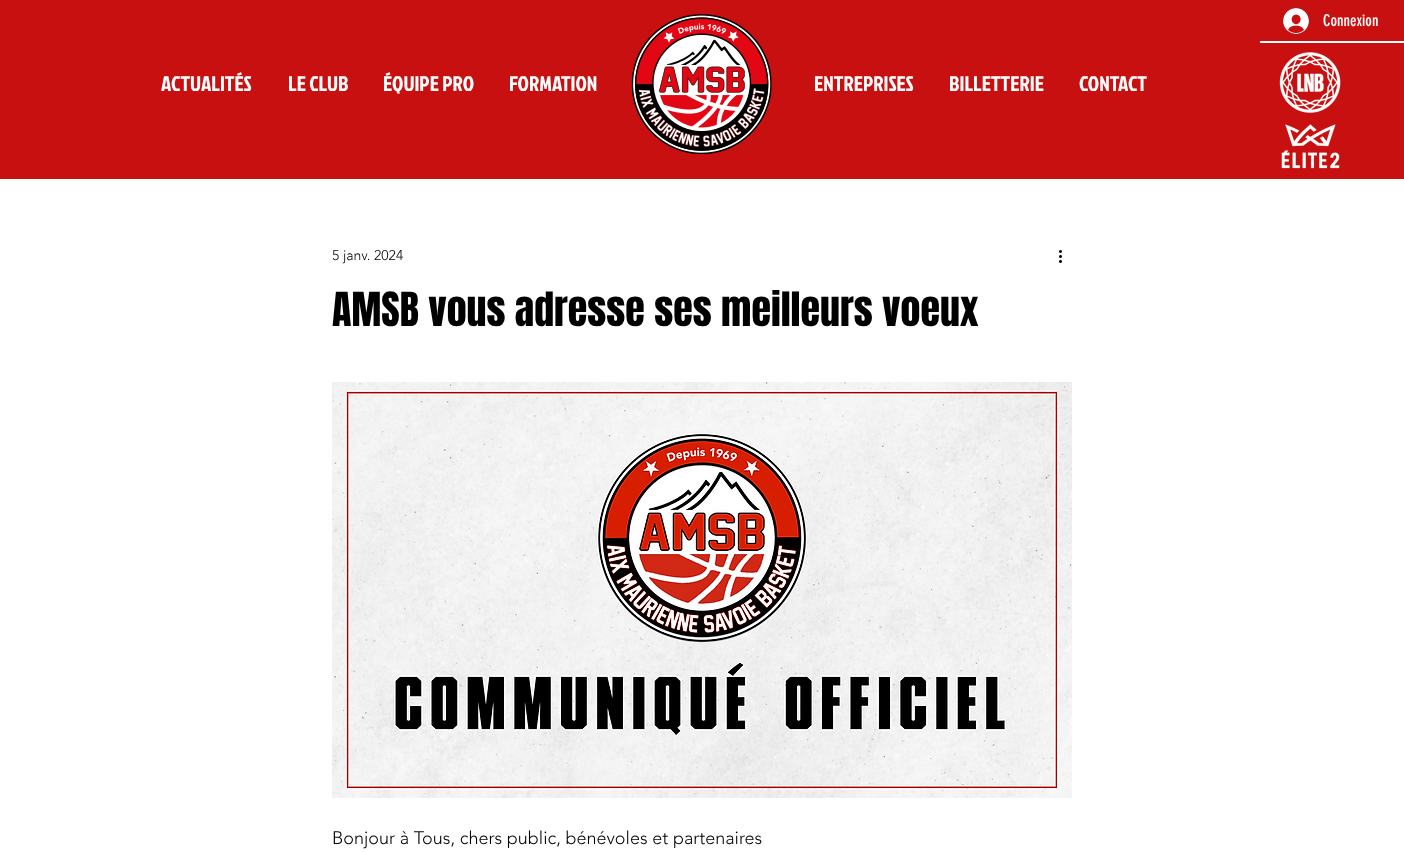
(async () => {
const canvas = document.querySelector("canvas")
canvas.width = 1404
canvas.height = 852
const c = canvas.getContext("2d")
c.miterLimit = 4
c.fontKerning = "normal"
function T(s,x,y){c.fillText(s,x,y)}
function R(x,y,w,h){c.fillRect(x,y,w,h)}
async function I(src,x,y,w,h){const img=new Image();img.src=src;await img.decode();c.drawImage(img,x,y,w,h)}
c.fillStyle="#fff"
R(0,0,1404,852)
c.fillStyle="#c91010"
R(0,0,1404,179)
await I("1.png",631,14,141,140)
await I("2.png",1283,8,26,26)
c.font="16px 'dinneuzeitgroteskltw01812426'"
c.fillStyle="#fff"
T("Connexion",1323,26)
R(1260,41,144,2)
c.font="21px Jockey One"
T("ACTUALITÉS",161,91)
T("LE CLUB",288,91)
T("ÉQUIPE PRO",383,91)
T("FORMATION",509,91)
T("ENTREPRISES",814,91)
T("BILLETTERIE",949,91)
T("CONTACT",1079,91)
await I("3.png",1279,52,62,61)
await I("4.png",1281,124,59,45)
c.font="300 14px 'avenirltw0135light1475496'"
c.fillStyle="#000"
T("5 janv. 2024",332,260)
await I("5.png",1059,250,3,13)
c.font="40px Anton"
T("AMSB vous adresse ses meilleurs voeux",332,326)
await I("6.png",332,382,740,416)
c.font="300 18px 'avenirltw0135light1475496'"
T("Bonjour à Tous, chers public, bénévoles et partenaires",332,844)
})()
